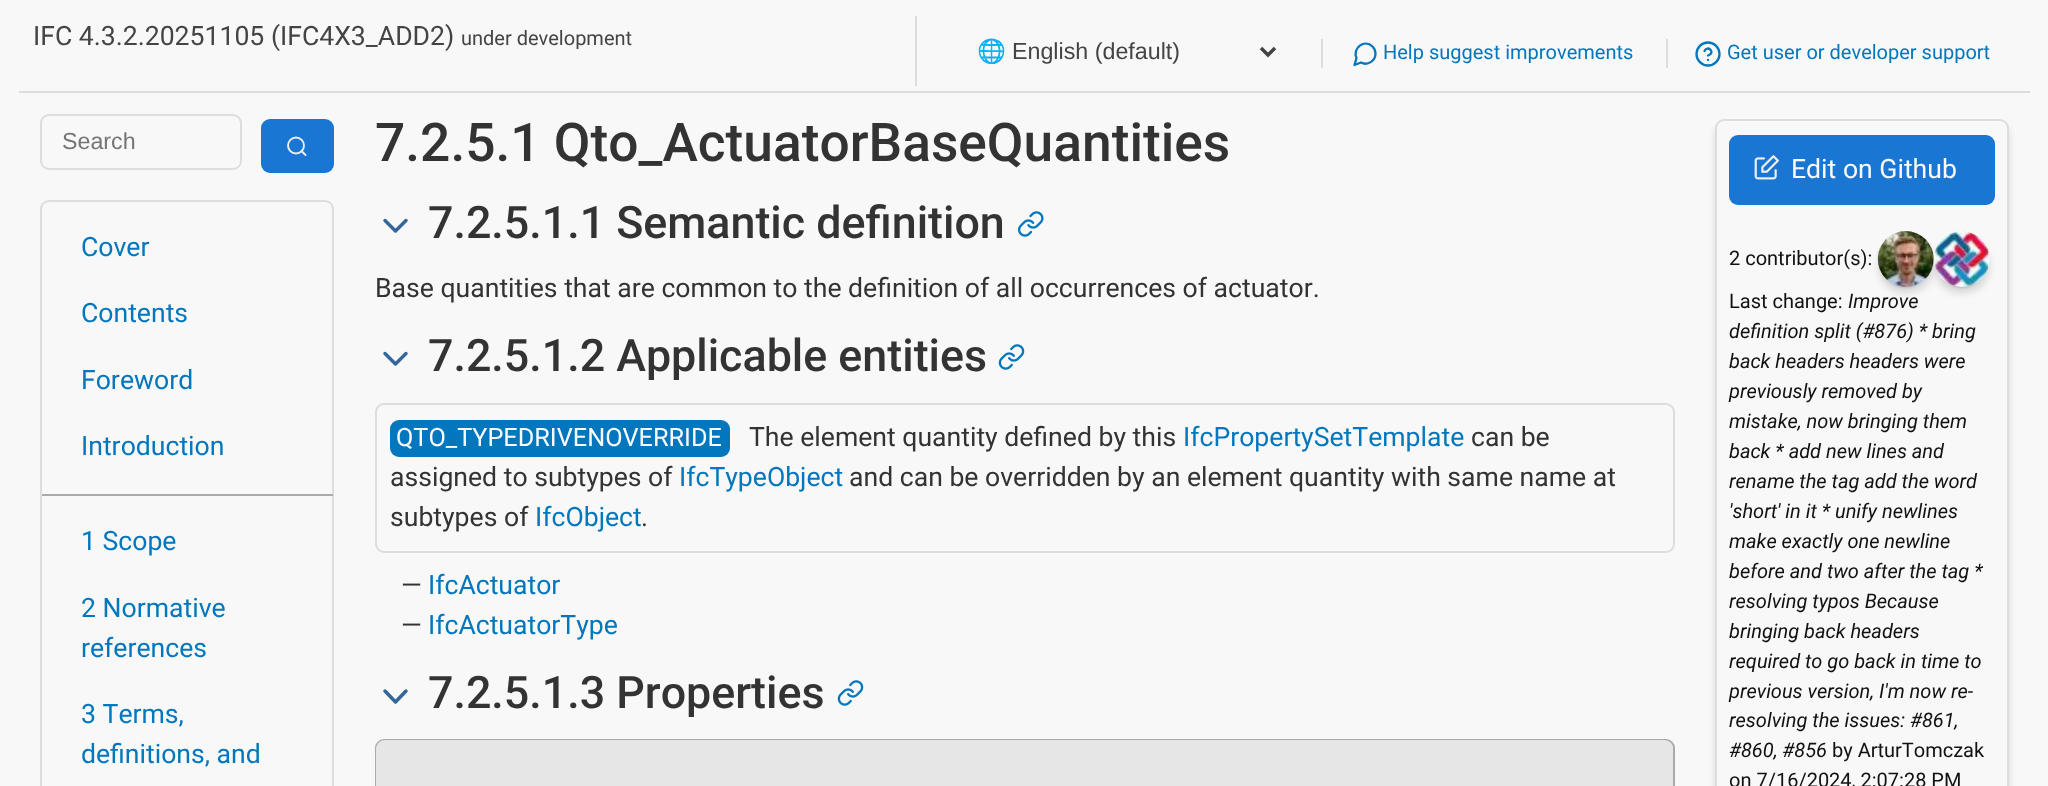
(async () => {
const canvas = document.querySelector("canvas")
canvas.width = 2048
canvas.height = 786
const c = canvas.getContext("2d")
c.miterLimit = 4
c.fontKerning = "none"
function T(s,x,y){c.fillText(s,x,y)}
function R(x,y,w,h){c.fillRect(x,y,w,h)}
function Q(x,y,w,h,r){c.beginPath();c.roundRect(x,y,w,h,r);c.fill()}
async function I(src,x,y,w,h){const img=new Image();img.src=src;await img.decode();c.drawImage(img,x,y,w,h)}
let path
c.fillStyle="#f8f8f8"
R(0,0,2048,786)
c.fillStyle="#ddd"
R(19,91,2011,2)
c.font="26.6px Roboto"
c.fillStyle="#444"
T("IFC 4.3.2.20251105 (IFC4X3_ADD2)",33,45)
c.font="20px Roboto"
T("under development",461,45)
c.fillStyle="#ddd"
R(915,16,2,70)
path = new Path2D("M1261 48l7 7l7-7")
c.strokeStyle="#444"
c.lineWidth=3.5
c.stroke(path)
c.save()
c.beginPath()
c.rect(977,37,257,30)
c.clip()
c.font="23.25px Noto Color Emoji"
c.fillStyle="#444"
T("🌐",977,59)
c.restore()
c.font="23.25px Liberation Sans"
c.fillStyle="#444"
T("English (default)",1012,59)
c.fillStyle="#ddd"
R(1321,39,2,29)
c.font="20px Roboto"
c.fillStyle="#0277bd"
T("Help suggest improvements",1383,59)
path = new Path2D("M1375.5 53.5c0 7.5-8 12.5-14.5 9l-6.5 2.5l2-7c-4.5-9.5 8-19.5 16-11.5c2 2 3 4.5 3 7z")
c.strokeStyle="#0277bd"
c.lineWidth=2.3
c.lineCap="round"
c.lineJoin="round"
c.stroke(path)
c.fillStyle="#ddd"
R(1666,39,2,29)
c.fillStyle="#0277bd"
T("Get user or developer support",1727,59)
c.beginPath()
c.arc(1708,54,11.5,0,7)
c.stroke()
path = new Path2D("M1704.5 51c2.5-6.5 12 1.5 3.5 4.5m0 4.5h0")
c.stroke(path)
c.beginPath()
c.roundRect(41,115,200,54,8)
c.strokeStyle="#ddd"
c.lineWidth=2
c.lineJoin="miter"
c.stroke()
c.font="23.25px Liberation Sans"
c.fillStyle="#757575"
T("Search",62,149)
c.fillStyle="#1976d2"
Q(261,119,73,54,9)
c.beginPath()
c.arc(296,145.5,8,0,7)
c.strokeStyle="#eee"
c.lineWidth=1.9
c.stroke()
path = new Path2D("M305.5 155l-4-4")
c.lineJoin="round"
c.stroke(path)
c.beginPath()
c.roundRect(41,201,292,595,8)
c.strokeStyle="#ddd"
c.lineWidth=2
c.lineJoin="miter"
c.stroke()
c.fillStyle="#aaa"
R(42,494,291,2)
c.font="26.6px Roboto"
c.fillStyle="#0277bd"
T("Cover",81,256)
T("Contents",81,322)
T("Foreword",81,389)
T("Introduction",81,455)
T("1 Scope",81,550)
T("2 Normative",81,617)
T("references",81,657)
T("3 Terms,",81,723)
T("definitions, and",81,763)
c.font="500 53.3px Roboto"
c.fillStyle="#333"
T("7.2.5.1 Qto_ActuatorBaseQuantities",375,161)
path = new Path2D("M385 220.5l10.5 10.5l10.5-10.5")
c.strokeStyle="#369"
c.lineWidth=3.5
c.lineJoin="round"
c.stroke(path)
c.font="500 44.8px Roboto"
T("7.2.5.1.1 Semantic definition",428,238)
await I("1.png",1018,211,26,26)
c.font="26.6px Roboto"
T("Base quantities that are common to the definition of all occurrences of actuator.",375,297)
path = new Path2D("M385 353.5l10.5 10.5l10.5-10.5")
c.stroke(path)
c.font="500 44.8px Roboto"
T("7.2.5.1.2 Applicable entities",428,371)
await I("2.png",998,344,27,26)
c.beginPath()
c.roundRect(376,404,1298,148,8)
c.strokeStyle="#ddd"
c.lineWidth=2
c.lineJoin="miter"
c.stroke()
c.fillStyle="#0277bd"
Q(390,420,340,37,9)
c.font="25.25px Roboto"
c.fillStyle="#fafafa"
T("QTO_TYPEDRIVENOVERRIDE",396,446)
c.font="26.6px Roboto"
c.fillStyle="#333"
T("The element quantity defined by this",749,446)
c.fillStyle="#0277bd"
T("IfcPropertySetTemplate",1183,446)
c.fillStyle="#333"
T("can be",1471,446)
T("assigned to subtypes of",390,486)
c.fillStyle="#0277bd"
T("IfcTypeObject",679,486)
c.fillStyle="#333"
T("and can be overridden by an element quantity with same name at",849,486)
T("subtypes of",390,526)
c.fillStyle="#0277bd"
T("IfcObject",535,526)
c.fillStyle="#333"
T(".",641,526)
T("—",401,594)
c.fillStyle="#0277bd"
T("IfcActuator",428,594)
c.fillStyle="#333"
T("—",401,634)
c.fillStyle="#0277bd"
T("IfcActuatorType",428,634)
path = new Path2D("M385 691l10.5 11l10.5-11")
c.strokeStyle="#369"
c.lineWidth=3.5
c.lineJoin="round"
c.stroke(path)
c.font="500 44.8px Roboto"
c.fillStyle="#333"
T("7.2.5.1.3 Properties",428,708)
await I("2.png",837,680,27,26)
c.beginPath()
c.roundRect(376,740,1298,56,8)
c.strokeStyle="#aaa"
c.lineWidth=2
c.lineJoin="miter"
c.stroke()
c.fillStyle="#e6e6e6"
path = new Path2D("M385 740h179v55h-188v-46c0-5 4-9 9-9z")
c.fill(path)
R(564,740,1016,46)
path = new Path2D("M1580 740h84c5 0 9 4 9 9v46h-93z")
c.fill(path)
c.save()
path = new Path2D("M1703 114h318v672h-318zm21 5h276c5 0 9 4 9 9v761c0 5-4 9-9 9h-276c-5 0-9-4-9-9v-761c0-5 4-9 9-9z")
c.clip(path,"evenodd")
c.fillStyle="#0000001f"
c.filter="blur(3.5px)"
c.beginPath()
c.roundRect(1715,126,294,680,9)
c.fill()
c.filter="none"
c.restore()
c.beginPath()
c.roundRect(1716,120,292,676,8)
c.strokeStyle="#ddd"
c.stroke()
c.fillStyle="#1976d2"
Q(1729,135,266,70,9)
await I("3.png",1754,155,25,25)
c.font="26.6px Roboto"
c.fillStyle="#fafafa"
T("Edit on Github",1791,178)
c.font="20px Roboto"
c.fillStyle="#111"
T("2 contributor(s):",1729,265)
c.fillStyle="#00000040"
c.filter="blur(1.5px)"
c.beginPath()
c.roundRect(1881,238,49,49,24.5)
c.fill()
c.filter="none"
c.fillStyle="#0000001f"
c.filter="blur(3.5px)"
c.beginPath()
c.roundRect(1878,238,56,56,28)
c.fill()
c.filter="none"
await I("4.png",1877,231,57,56)
c.fillStyle="#00000040"
c.filter="blur(1.5px)"
c.beginPath()
c.roundRect(1937,238,49,49,24.5)
c.fill()
c.filter="none"
c.fillStyle="#0000001f"
c.filter="blur(3.5px)"
c.beginPath()
c.roundRect(1934,238,56,56,28)
c.fill()
c.filter="none"
await I("5.png",1933,231,57,56)
c.fillStyle="#111"
T("Last change:",1729,308)
c.font="italic 20px Roboto"
T("Improve",1848,308)
T("definition split (#876) * bring",1729,338)
T("back headers headers were",1729,368)
T("previously removed by",1729,398)
T("mistake, now bringing them",1729,428)
T("back * add new lines and",1729,458)
T("rename the tag add the word",1729,488)
T("'short' in it * unify newlines",1729,518)
T("make exactly one newline",1729,548)
T("before and two after the tag *",1729,578)
T("resolving typos Because",1729,608)
T("bringing back headers",1729,638)
T("required to go back in time to",1729,668)
T("previous version, I'm now re-",1729,698)
T("resolving the issues: #861,",1729,727)
T("#860, #856",1729,757)
c.font="20px Roboto"
T("by ArturTomczak",1832,757)
T("on 7/16/2024, 2:07:28 PM",1729,787)
})()
